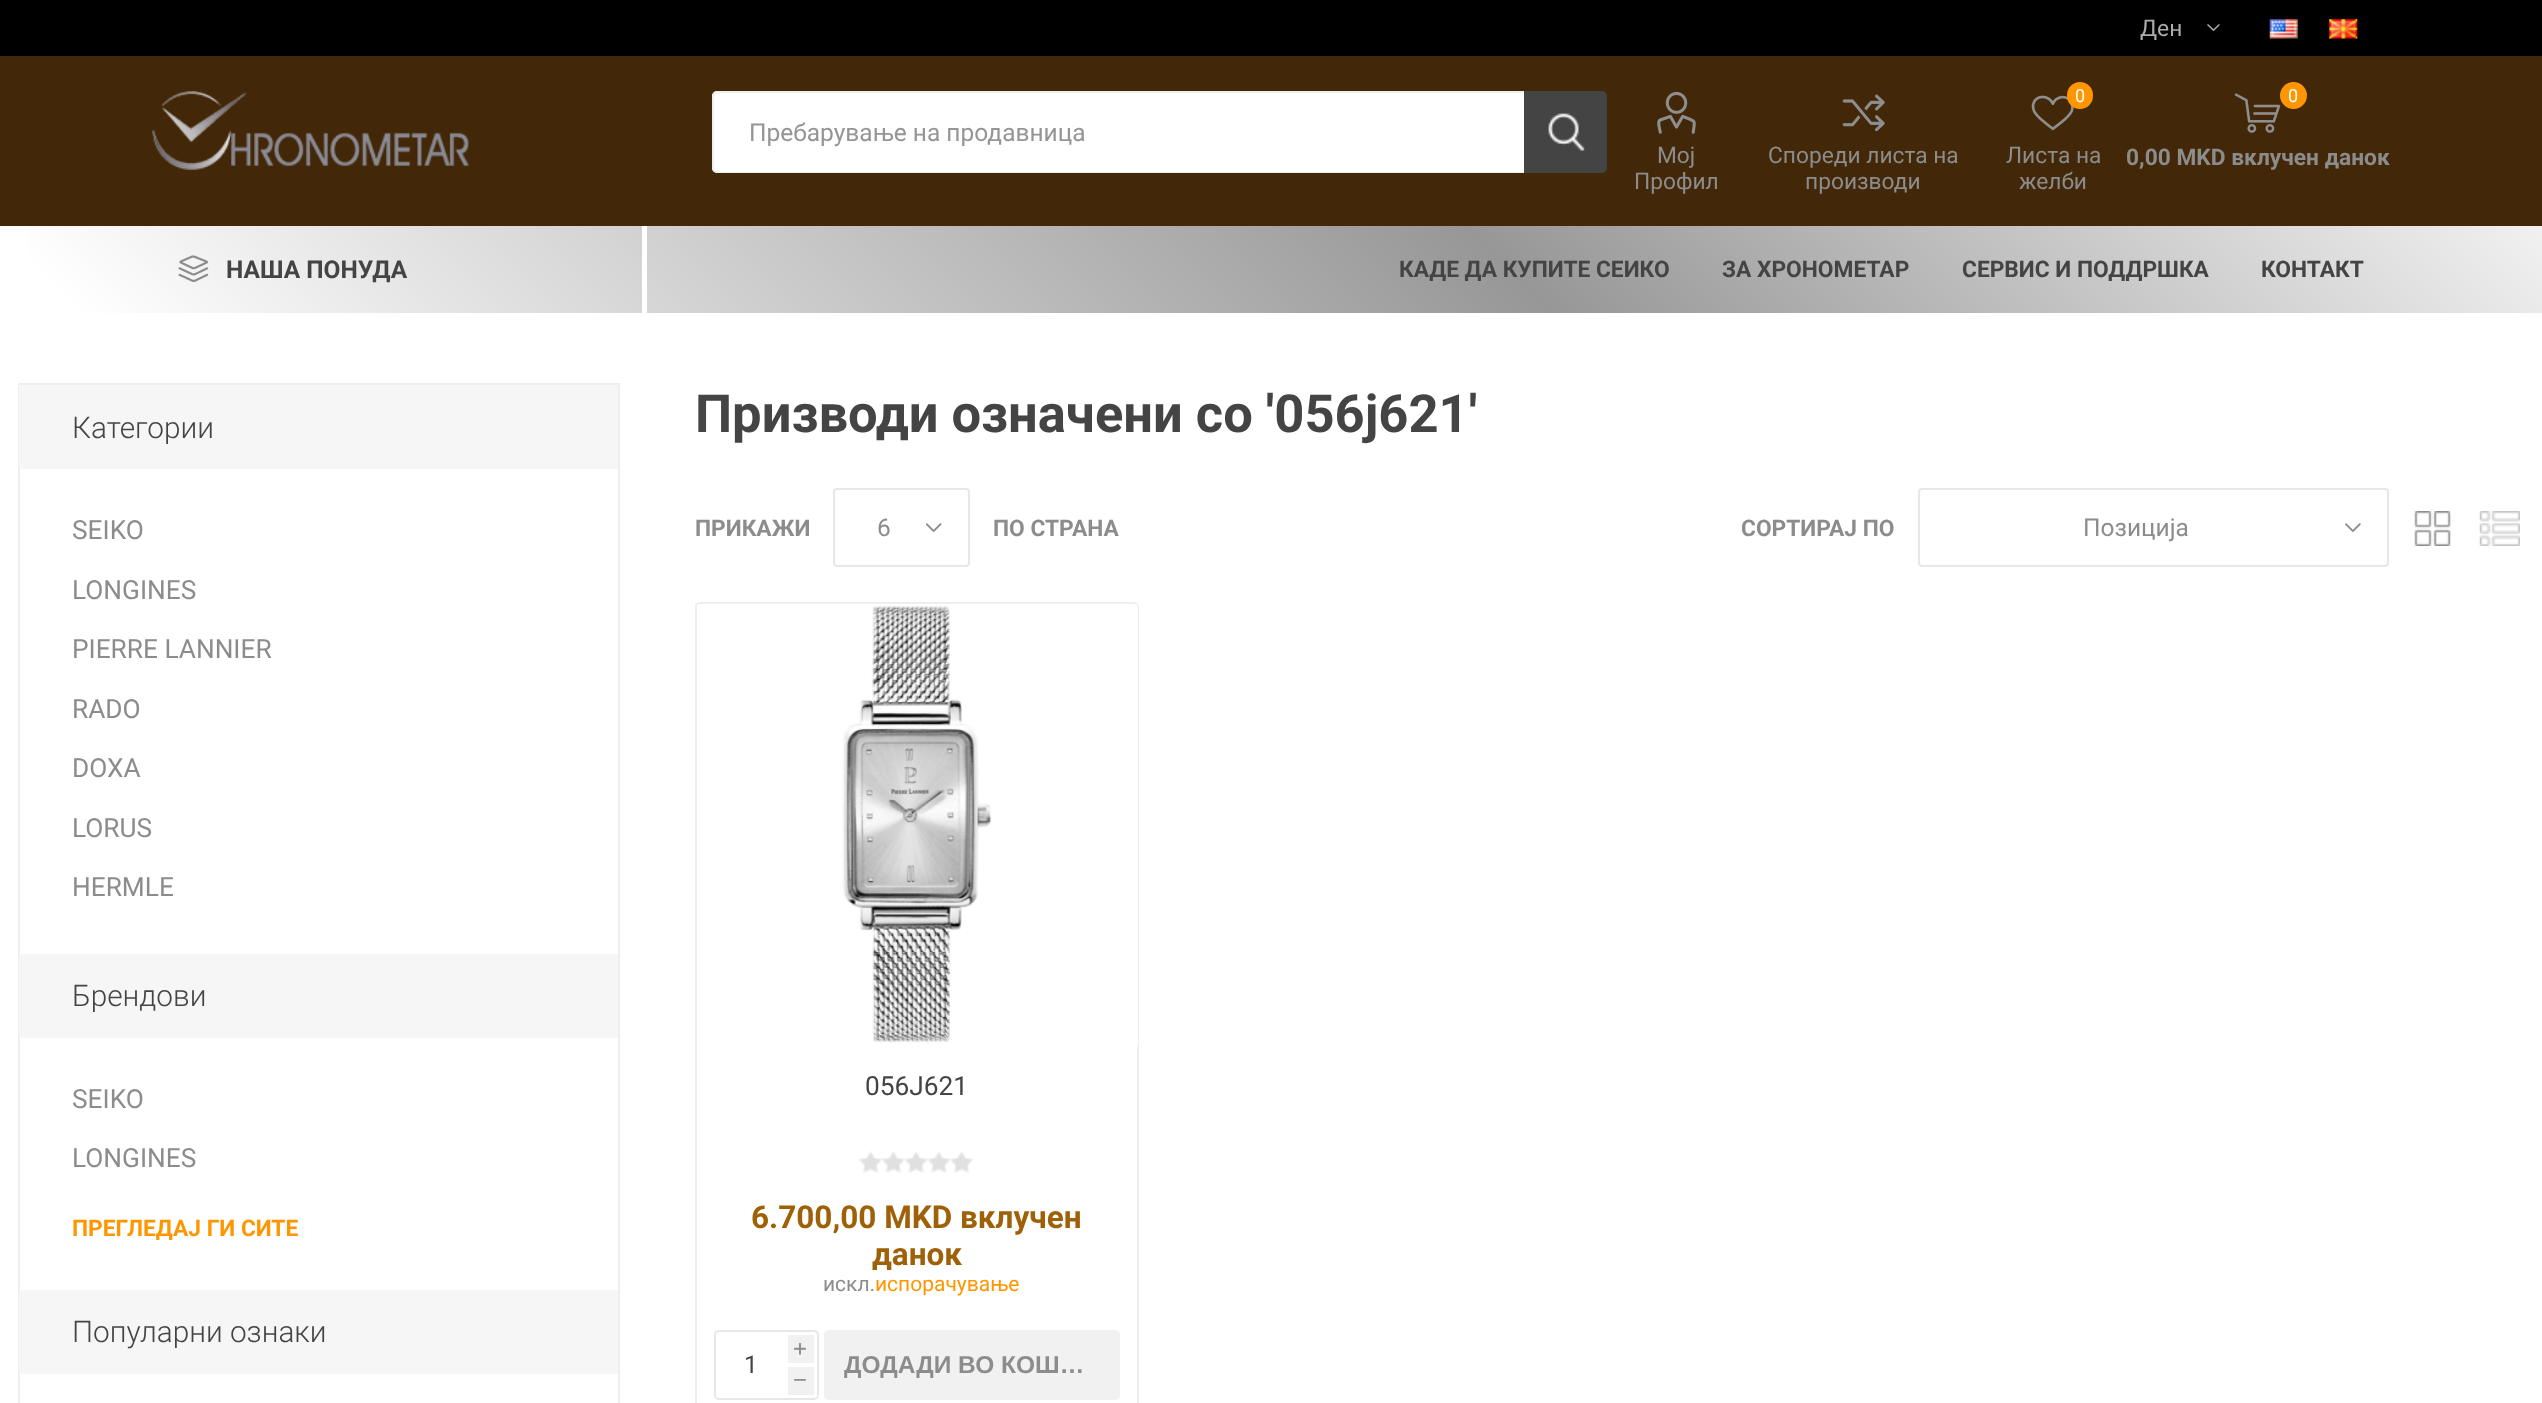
(async () => {
const canvas = document.querySelector("canvas")
canvas.width = 2542
canvas.height = 1403
const c = canvas.getContext("2d")
c.miterLimit = 4
c.fontKerning = "normal"
function T(s,x,y){c.fillText(s,x,y)}
function R(x,y,w,h){c.fillRect(x,y,w,h)}
function Q(x,y,w,h,r){c.beginPath();c.roundRect(x,y,w,h,r);c.fill()}
async function I(src,x,y,w,h){const img=new Image();img.src=src;await img.decode();c.drawImage(img,x,y,w,h)}
let gradient, path
c.fillStyle="#fff"
R(0,0,2542,1403)
c.fillStyle="#422809"
R(0,56,2542,170)
c.fillStyle="#000"
R(0,0,2542,56)
c.font="22.75px Roboto"
c.fillStyle="#ababab"
T("Ден",2140,36)
await I("1.png",2207,24,13,7)
await I("2.png",2269,19,29,20)
await I("3.png",2329,19,29,20)
await I("4.png",152,91,317,79)
c.fillStyle="#fff"
c.beginPath()
c.roundRect(712,91,812,82,[5,0,0,5])
c.fill()
c.fillStyle="#eee"
path = new Path2D("M718 91h806v82h-806c-3 0-6-2-6-5v-72c0-3 3-5 6-5zm0 2h806v79h-806c-2 0-4-2-4-4v-72c0-2 2-3 4-3z")
c.fill(path,"evenodd")
c.font="24.5px Roboto"
c.fillStyle="#959595"
T("Пребарување на продавница",749,141)
c.fillStyle="#444"
c.beginPath()
c.roundRect(1524,91,83,82,[0,5,5,0])
c.fill()
await I("5.png",1548,113,37,38)
await I("6.png",1657,91,39,43)
c.font="22.75px Roboto"
c.fillStyle="#8c8c8c"
T("Мој",1657,163)
T("Профил",1634,189)
await I("7.png",1842,94,43,38)
T("Спореди листа на",1768,163)
T("производи",1805,189)
await I("8.png",2031,95,43,36)
c.fillStyle="#ff9600"
Q(2067,82,26,27,13)
c.font="18px Roboto"
c.fillStyle="#fff"
T("0",2075,102)
c.font="22.75px Roboto"
c.fillStyle="#8c8c8c"
T("Листа на",2006,163)
T("желби",2019,189)
await I("9.png",2234,93,47,40)
c.fillStyle="#ff9600"
c.beginPath()
c.arc(2293.5,95.5,13.5,0,7)
c.fill()
c.font="18px Roboto"
c.fillStyle="#fff"
T("0",2288,102)
c.font="bold 22.75px Roboto"
c.fillStyle="#8c8c8c"
T("0,00 MKD вклучен данок",2126,165)
gradient = c.createLinearGradient(614,927,1929,-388)
gradient.addColorStop(.03,"#fff")
gradient.addColorStop(.59,"#979797")
gradient.addColorStop(1,"#f1f1f1")
c.fillStyle = gradient
R(28,226,2514,87)
c.fillStyle="#fff"
R(642,226,5,87)
await I("10.png",178,255,31,27)
c.font="bold 24.5px Roboto"
c.fillStyle="#444"
T("НАША ПОНУДА",226,278)
c.font="bold 22.75px Roboto"
T("КАДЕ ДА КУПИТЕ СЕИКО",1399,277)
T("ЗА ХРОНОМЕТАР",1722,277)
T("СЕРВИС И ПОДДРШКА",1962,277)
T("КОНТАКТ",2261,277)
c.strokeStyle="#eee"
c.lineWidth=2
c.strokeRect(19,384,600,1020)
c.fillStyle="#f6f6f6"
R(19,385,599,84)
c.font="300 29.75px Roboto"
c.fillStyle="#444"
T("Категории",72,438)
c.font="26.25px Roboto"
c.fillStyle="#8c8c8c"
T("SEIKO",72,539)
T("LONGINES",72,599)
T("PIERRE LANNIER",72,658)
T("RADO",72,718)
T("DOXA",72,777)
T("LORUS",72,837)
T("HERMLE",72,896)
c.fillStyle="#f6f6f6"
R(19,954,599,84)
c.font="300 29.75px Roboto"
c.fillStyle="#444"
T("Брендови",72,1006)
c.font="26.25px Roboto"
c.fillStyle="#8c8c8c"
T("SEIKO",72,1108)
T("LONGINES",72,1167)
c.font="bold 22.75px Roboto"
c.fillStyle="#ff9600"
T("ПРЕГЛЕДАЈ ГИ СИТЕ",72,1236)
c.fillStyle="#f6f6f6"
R(19,1290,599,84)
c.font="300 29.75px Roboto"
c.fillStyle="#444"
T("Популарни ознаки",72,1342)
c.font="bold 52.5px Roboto"
T("Призводи означени со '056j621'",695,432)
c.font="bold 22.75px Roboto"
c.fillStyle="#8c8c8c"
T("ПРИКАЖИ",695,536)
await I("11.png",926,523,16,9)
c.beginPath()
c.roundRect(834,489,135,77,3)
c.strokeStyle="#e7e7e7"
c.stroke()
c.font="24.5px Roboto"
T("6",877,536)
c.font="bold 22.75px Roboto"
T("ПО СТРАНА",993,536)
T("СОРТИРАЈ ПО",1741,536)
await I("12.png",2345,523,16,9)
c.beginPath()
c.roundRect(1919,489,469,77,3)
c.stroke()
c.font="24.5px Roboto"
T("Позиција",2083,536)
await I("13.png",2414,511,37,35)
await I("14.png",2479,511,41,35)
c.beginPath()
c.roundRect(696,603,442,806,4)
c.strokeStyle="#eee"
c.stroke()
c.fillStyle="#fff"
c.beginPath()
c.roundRect(697,604,441,441,[4,4,0,0])
c.fill()
await I("15.png",697,604,295,439)
c.font="26.25px Roboto"
c.fillStyle="#444"
T("056J621",865,1095)
await I("16.png",859,1151,114,22)
c.font="bold 31.5px Roboto"
c.fillStyle="#9f6108"
T("6.700,00 MKD вклучен",751,1228)
T("данок",872,1265)
c.font="21px Roboto"
c.fillStyle="#8c8c8c"
T("искл.",823,1291)
c.fillStyle="#ff9600"
T("испорачување",875,1291)
c.beginPath()
c.roundRect(715,1331,103,68,4)
c.strokeStyle="#e7e7e7"
c.stroke()
c.fillStyle="#f1f1f1"
R(788,1335,26,28)
c.font="12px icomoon"
c.fillStyle="#8c8c8c"
T("i",794,1354)
c.font="24.5px Roboto"
c.fillStyle="#444"
T("1",744,1373)
c.fillStyle="#f1f1f1"
R(788,1367,26,28)
c.font="12px icomoon"
c.fillStyle="#8c8c8c"
T("h",794,1385)
c.fillStyle="#f1f1f1"
Q(824,1330,296,70,5)
c.font="bold 24.5px Liberation Sans"
c.fillStyle="#8c8c8c"
T("ДОДАДИ ВО КОШ…",844,1373)
})()
